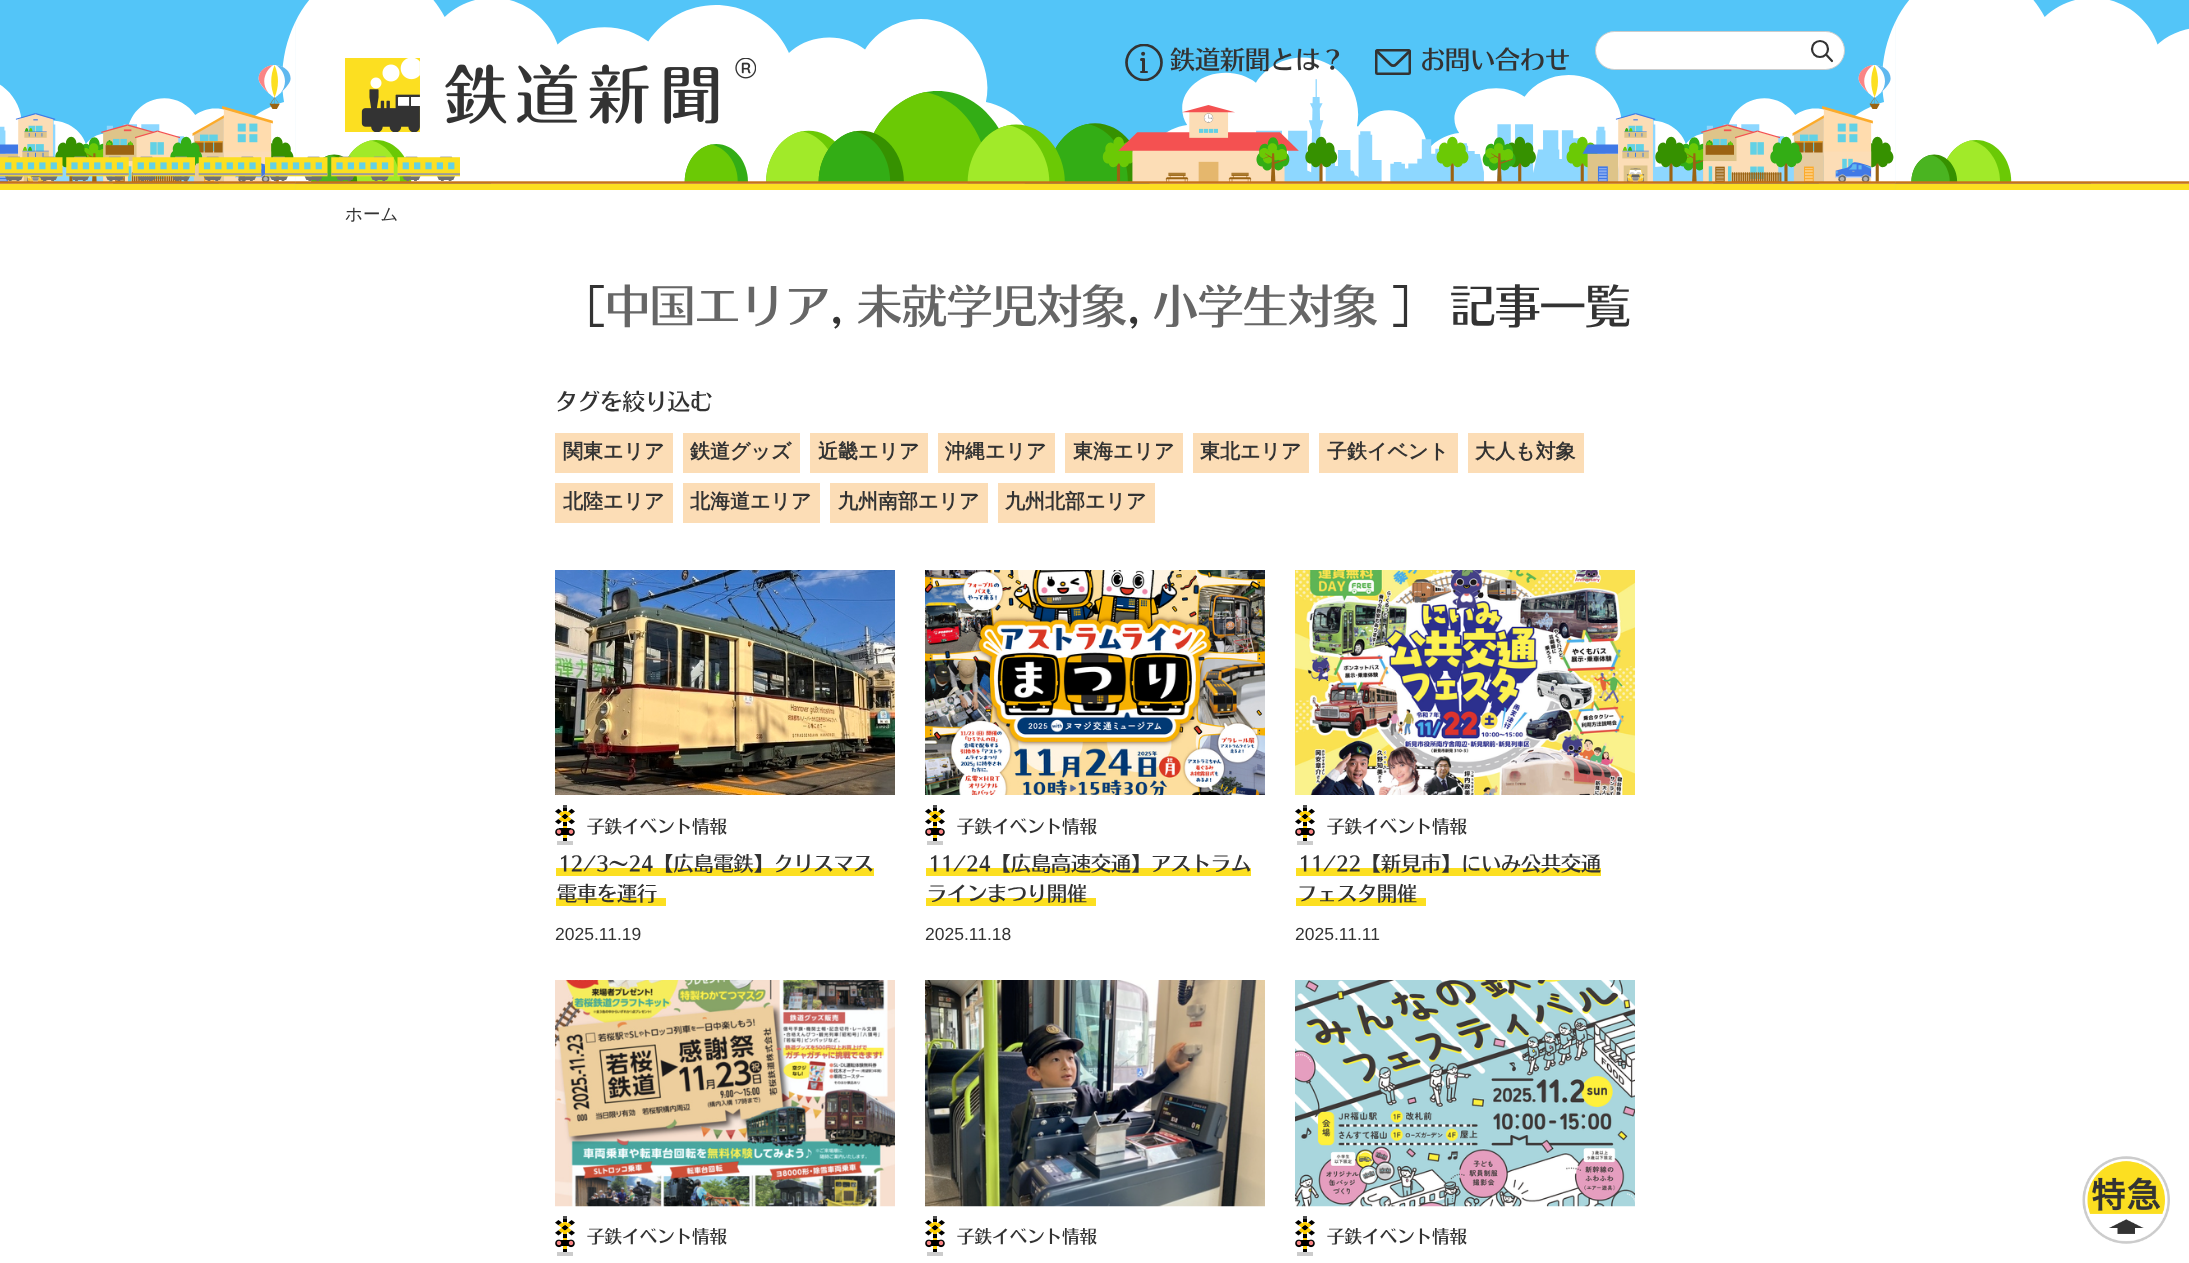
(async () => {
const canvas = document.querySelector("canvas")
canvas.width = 2189
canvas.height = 1263
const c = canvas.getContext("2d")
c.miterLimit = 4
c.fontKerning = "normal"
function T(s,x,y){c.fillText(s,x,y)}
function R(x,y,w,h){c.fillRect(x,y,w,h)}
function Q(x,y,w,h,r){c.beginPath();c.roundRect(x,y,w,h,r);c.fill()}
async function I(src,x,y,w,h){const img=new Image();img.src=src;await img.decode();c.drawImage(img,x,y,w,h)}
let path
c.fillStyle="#fff"
R(0,0,2189,1263)
await I("1.png",0,0,2189,190)
await I("2.png",345,58,411,74)
c.save()
c.beginPath()
c.rect(1125,44,38,37)
c.clip()
c.beginPath()
c.arc(1144,62.5,17.5,0,7)
c.strokeStyle="#333"
c.lineWidth=2.7
c.stroke()
c.restore()
c.fillStyle="#333"
c.beginPath()
c.arc(1143.1,53.8,2,0,7)
c.fill()
Q(1142,58,3,14,1.5)
Q(1140,71,8,2,1)
Q(1140,58,5,3,1.5)
c.font="500 25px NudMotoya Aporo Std"
T("鉄道新聞とは？",1170,69)
c.beginPath()
c.roundRect(1376.25,50.25,33.5,23.5,1.25)
c.strokeStyle="#333"
c.lineWidth=2.5
c.stroke()
c.save()
path = new Path2D("M1408 49h-29.5c-2 0-3.5 1.5-3.5 3.5v18.5c0 2 1.5 3.5 3.5 3.5h29.5c1.5 0 3-1.5 3-3.5v-18.5c0-2-1.5-3.5-3-3.5z")
c.clip(path)
path = new Path2D("M1367.5 36l23-22.5c1.5-1.5 4-1.5 5.5 0l23 22.5c1.5 2 1.5 4.5 0 6l-23 22.5c-1.5 1.5-4 1.5-5.5 0l-23-22.5c-1.5-1.5-1.5-4 0-6z")
c.lineWidth=2.7
c.stroke(path)
c.restore()
T("お問い合わせ",1420,69)
c.fillStyle="#fff"
c.beginPath()
c.roundRect(1595.5,31.5,249,38,19)
c.fill()
c.strokeStyle="#ccc"
c.lineWidth=1
c.stroke()
c.beginPath()
c.arc(1820,49,8,0,7)
c.strokeStyle="#333"
c.lineWidth=2.2
c.stroke()
path = new Path2D("M1826.5 55l5.5 6")
c.lineCap="round"
c.stroke(path)
await I("3.png",0,156,460,25)
c.font="500 17.5px WenQuanYi Zen Hei"
c.fillStyle="#333"
T("ホーム",345,220)
c.font="500 45px NudMotoya Aporo Std"
T("［",560,323)
c.fillStyle="#666"
T("中国エリア",605,323)
c.fillStyle="#333"
T(",",830,323)
c.fillStyle="#666"
T("未就学児対象",857,323)
c.fillStyle="#333"
T(",",1127,323)
c.fillStyle="#666"
T("小学生対象",1153,323)
c.fillStyle="#333"
T("］ 記事一覧",1392,323)
c.font="500 22.5px NudMotoya Aporo Std"
T("タグを絞り込む",555,410)
c.fillStyle="#fcddb6"
R(555,433,118,40)
c.font="bold 20px WenQuanYi Zen Hei"
c.fillStyle="#333"
T("関東エリア",563,458)
c.fillStyle="#fcddb6"
R(683,433,117,40)
c.fillStyle="#333"
T("鉄道グッズ",690,458)
c.fillStyle="#fcddb6"
R(810,433,118,40)
c.fillStyle="#333"
T("近畿エリア",818,458)
c.fillStyle="#fcddb6"
R(938,433,117,40)
c.fillStyle="#333"
T("沖縄エリア",945,458)
c.fillStyle="#fcddb6"
R(1065,433,118,40)
c.fillStyle="#333"
T("東海エリア",1073,458)
c.fillStyle="#fcddb6"
R(1193,433,116,40)
c.fillStyle="#333"
T("東北エリア",1200,458)
c.fillStyle="#fcddb6"
R(1319,433,139,40)
c.fillStyle="#333"
T("子鉄イベント",1327,458)
c.fillStyle="#fcddb6"
R(1468,433,116,40)
c.fillStyle="#333"
T("大人も対象",1475,458)
c.fillStyle="#fcddb6"
R(555,483,118,40)
c.fillStyle="#333"
T("北陸エリア",563,508)
c.fillStyle="#fcddb6"
R(683,483,137,40)
c.fillStyle="#333"
T("北海道エリア",690,508)
c.fillStyle="#fcddb6"
R(830,483,158,40)
c.fillStyle="#333"
T("九州南部エリア",838,508)
c.fillStyle="#fcddb6"
R(998,483,157,40)
c.fillStyle="#333"
T("九州北部エリア",1005,508)
await I("4.png",555,570,340,225)
await I("5.png",555,805,20,40)
c.font="500 17.5px NudMotoya Aporo Std"
T("子鉄イベント情報",587,833)
c.fillStyle="#fcdf21"
R(556,868,318,8)
c.font="500 20px NudMotoya Aporo Std"
c.fillStyle="#333"
T("12/3〜24【広島電鉄】クリスマス",558,871)
c.fillStyle="#fcdf21"
R(556,898,110,8)
c.fillStyle="#333"
T("電車を運行",557,901)
c.font="17.5px Liberation Sans"
T("2025.11.19",555,940)
await I("6.png",925,570,340,225)
await I("5.png",925,805,20,40)
c.font="500 17.5px NudMotoya Aporo Std"
T("子鉄イベント情報",957,833)
c.fillStyle="#fcdf21"
R(926,868,325,8)
c.font="500 20px NudMotoya Aporo Std"
c.fillStyle="#333"
T("11/24【広島高速交通】アストラム",928,871)
c.fillStyle="#fcdf21"
R(926,898,170,8)
c.fillStyle="#333"
T("ラインまつり開催",927,901)
c.font="17.5px Liberation Sans"
T("2025.11.18",925,940)
await I("7.png",1295,570,340,225)
await I("5.png",1295,805,20,40)
c.font="500 17.5px NudMotoya Aporo Std"
T("子鉄イベント情報",1327,833)
c.fillStyle="#fcdf21"
R(1296,868,305,8)
c.font="500 20px NudMotoya Aporo Std"
c.fillStyle="#333"
T("11/22【新見市】にいみ公共交通",1298,871)
c.fillStyle="#fcdf21"
R(1296,898,130,8)
c.fillStyle="#333"
T("フェスタ開催",1297,901)
c.font="17.5px Liberation Sans"
T("2025.11.11",1295,940)
await I("8.png",555,980,340,227)
await I("9.png",555,1216,20,40)
c.font="500 17.5px NudMotoya Aporo Std"
T("子鉄イベント情報",587,1243)
await I("10.png",925,980,340,227)
await I("9.png",925,1216,20,40)
T("子鉄イベント情報",957,1243)
await I("11.png",1295,980,340,227)
await I("9.png",1295,1216,20,40)
T("子鉄イベント情報",1327,1243)
await I("12.png",2082,1156,88,88)
})()
